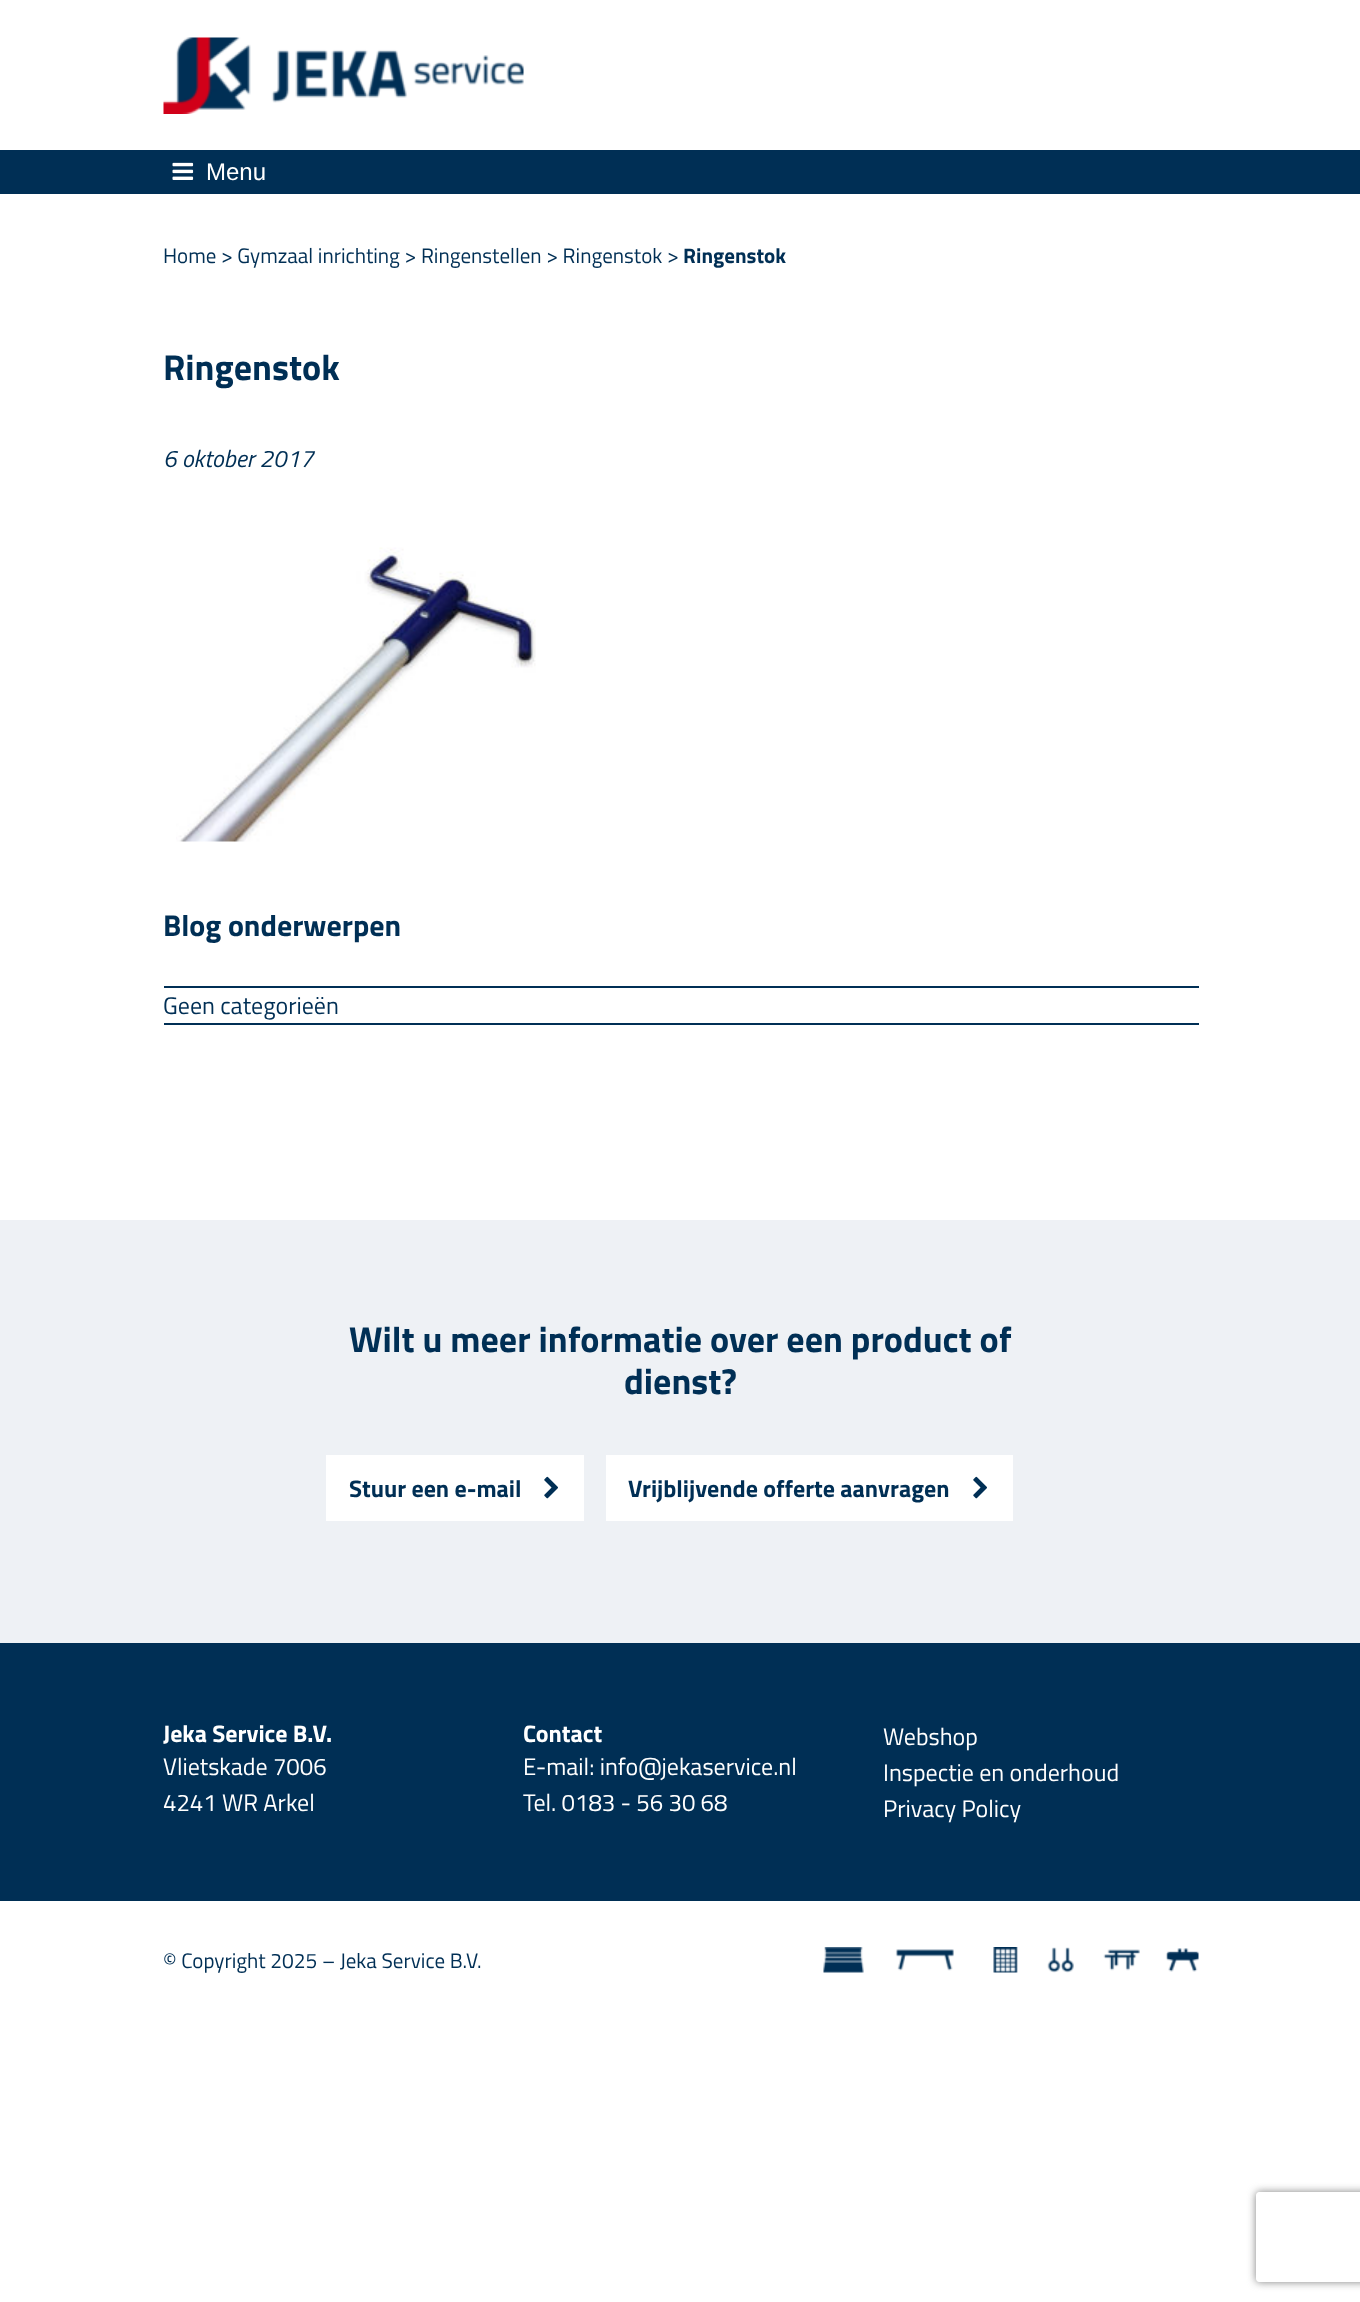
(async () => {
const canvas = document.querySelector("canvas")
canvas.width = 1360
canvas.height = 2302
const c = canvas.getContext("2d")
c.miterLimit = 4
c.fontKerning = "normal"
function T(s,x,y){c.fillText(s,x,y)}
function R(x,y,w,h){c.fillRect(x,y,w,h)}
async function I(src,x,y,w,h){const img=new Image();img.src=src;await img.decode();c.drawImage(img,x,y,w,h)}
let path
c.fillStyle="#fff"
R(0,0,1360,2302)
await I("1.png",163,37,361,77)
c.fillStyle="#002f55"
R(0,150,1360,44)
await I("2.png",172,162,22,18)
c.font="24px Liberation Sans"
c.fillStyle="#fff"
T("Menu",206,180)
c.font="21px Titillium"
c.fillStyle="#002f55"
T("Home > Gymzaal inrichting > Ringenstellen > Ringenstok >",163,263)
c.font="bold 21px Titillium"
T("Ringenstok",683,263)
c.font="bold 36px Titillium"
T("Ringenstok",163,380)
c.font="italic 24px Titillium"
T("6 oktober 2017",163,467)
await I("3.png",176,547,360,295)
c.font="bold 30px Titillium"
T("Blog onderwerpen",163,936)
R(164,986,1035,2)
R(164,1023,1035,2)
c.font="24px Titillium"
T("Geen categorieën",163,1014)
c.fillStyle="#eef1f5"
R(0,1220,1360,423)
c.font="bold 36px Titillium"
c.fillStyle="#002f55"
T("Wilt u meer informatie over een product of",349,1352)
T("dienst?",624,1394)
c.fillStyle="#fff"
R(326,1455,258,66)
c.font="bold 24px Titillium"
c.fillStyle="#002f55"
T("Stuur een e-mail",349,1497)
await I("4.png",544,1476,14,23)
c.fillStyle="#fff"
R(606,1455,407,66)
c.fillStyle="#002f55"
T("Vrijblijvende offerte aanvragen",628,1497)
await I("4.png",973,1476,14,23)
R(0,1643,1360,258)
c.fillStyle="#fff"
T("Jeka Service B.V.",163,1742)
c.font="24px Titillium"
T("Vlietskade 7006",163,1775)
T("4241 WR Arkel",163,1811)
c.font="bold 24px Titillium"
T("Contact",523,1742)
c.font="24px Titillium"
T("E-mail: info@jekaservice.nl",523,1775)
T("Tel. 0183 - 56 30 68",523,1811)
T("Webshop",883,1745)
T("Inspectie en onderhoud",883,1781)
T("Privacy Policy",883,1817)
c.font="21px Titillium"
c.fillStyle="#002f55"
T("© Copyright 2025 – Jeka Service B.V.",163,1968)
await I("5.png",823,1947,376,26)
c.save()
path = new Path2D("M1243 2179h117v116h-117zm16 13h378c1.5 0 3 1.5 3 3v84c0 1.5-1.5 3-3 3h-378c-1.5 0-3-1.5-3-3v-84c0-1.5 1.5-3 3-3z")
c.clip(path,"evenodd")
c.fillStyle="#808080"
c.filter="blur(4px)"
c.beginPath()
c.roundRect(1256,2192,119,90,3)
c.fill()
c.filter="none"
c.restore()
})()
